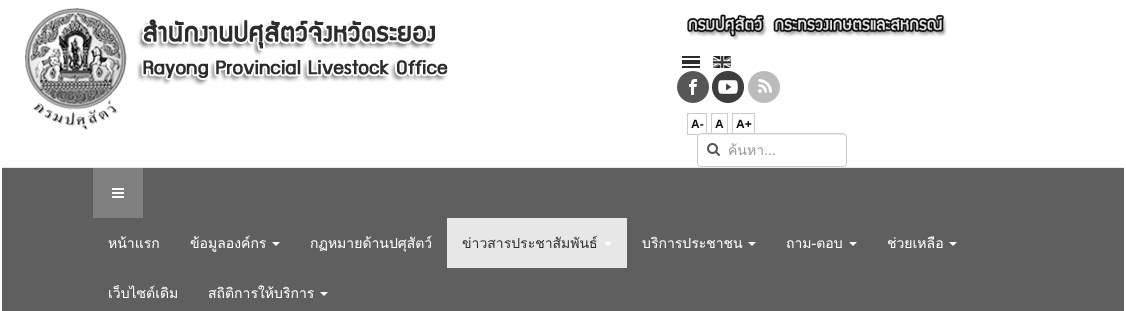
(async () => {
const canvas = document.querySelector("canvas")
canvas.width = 1126
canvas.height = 311
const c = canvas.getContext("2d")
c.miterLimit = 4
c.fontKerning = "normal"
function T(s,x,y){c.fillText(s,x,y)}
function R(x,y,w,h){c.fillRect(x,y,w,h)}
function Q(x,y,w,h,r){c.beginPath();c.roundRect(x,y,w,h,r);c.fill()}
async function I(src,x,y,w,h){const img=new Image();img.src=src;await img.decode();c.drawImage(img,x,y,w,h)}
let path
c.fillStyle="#fff"
R(0,0,1126,311)
await I("1.png",25,8,423,122)
await I("2.png",687,14,80,26)
await I("3.png",773,14,174,23)
await I("4.png",682,56,18,12)
await I("5.png",713,56,18,12)
await I("6.png",677,71,32,32)
await I("7.png",712,71,32,32)
await I("8.png",748,71,32,32)
c.strokeStyle="#ccc"
c.strokeRect(687.5,113.5,19,21)
c.font="bold 12px Liberation Sans"
c.fillStyle="#090909"
T("A-",691,128)
c.strokeRect(711.5,113.5,16,21)
T("A",715,128)
c.strokeRect(732.5,113.5,22,21)
T("A+",736,128)
c.fillStyle="#fff"
Q(697,133,150,34,4)
c.fillStyle="#ececec"
path = new Path2D("M701 135h142c2 0 3 1 3 3c0-2 0-3-2-4h-119c-8 0-27-5-27 4c0-2 1-3 3-3z")
c.fill(path)
c.beginPath()
c.roundRect(697.5,133.5,149,33,3.5)
c.stroke()
await I("9.png",707,143,13,13)
c.save()
c.beginPath()
c.rect(728,139,102,22)
c.clip()
c.font="14px Loma"
c.fillStyle="#999"
T("ค้นหา...",728,155)
c.restore()
c.fillStyle="#5f5f5f"
R(2,168,1122,143)
c.fillStyle="#e7e7e7"
R(2,167,1122,1)
c.fillStyle="#808080"
R(93,168,50,50)
await I("10.png",112,188,12,10)
c.font="14px Loma"
c.fillStyle="#fff"
T("หน้าแรก",108,248)
T("ข้อมูลองค์กร",190,248)
path = new Path2D("M272 242h8l-4 4z")
c.fill(path)
T("กฏหมายด้านปศุสัตว์",310,248)
c.fillStyle="#e7e7e7"
R(447,218,180,50)
c.fillStyle="#303030"
T("ข่าวสารประชาสัมพันธ์",462,248)
c.fillStyle="#fff"
path = new Path2D("M604 242h8l-4 4z")
c.fill(path)
T("บริการประชาชน",642,248)
path = new Path2D("M748 242h8l-4 4z")
c.fill(path)
T("ถาม-ตอบ",786,248)
path = new Path2D("M849 242h8l-4 4z")
c.fill(path)
T("ช่วยเหลือ",887,248)
path = new Path2D("M949 242h8l-4 4z")
c.fill(path)
T("เว็บไซต์เดิม",108,298)
T("สถิติการให้บริการ",208,298)
path = new Path2D("M320 292h8l-4 4z")
c.fill(path)
})()
